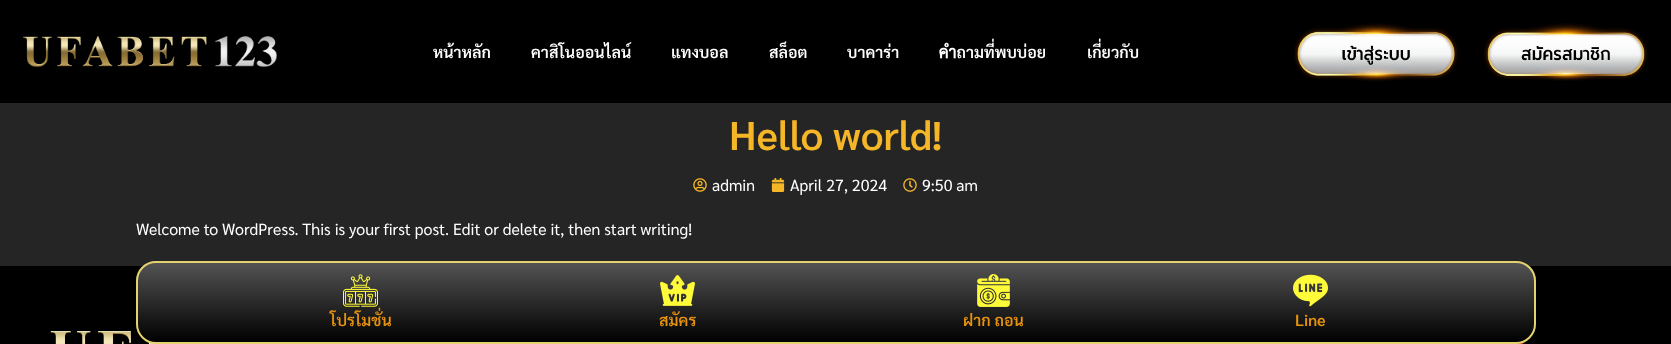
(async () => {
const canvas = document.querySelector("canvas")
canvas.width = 1671
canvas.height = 344
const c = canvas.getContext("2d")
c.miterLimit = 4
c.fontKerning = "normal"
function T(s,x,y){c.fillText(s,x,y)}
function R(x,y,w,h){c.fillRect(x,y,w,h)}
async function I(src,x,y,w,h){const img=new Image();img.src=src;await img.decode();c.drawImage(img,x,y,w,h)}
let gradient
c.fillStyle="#000"
R(0,0,1671,344)
await I("1.png",23,36,255,32)
c.font="600 16px Sarabun"
c.fillStyle="#fff"
T("หน้าหลัก",433,58)
T("คาสิโนออนไลน์",531,58)
T("แทงบอล",671,58)
T("สล็อต",769,58)
T("บาคาร่า",847,58)
T("คำถามที่พบบ่อย",939,58)
T("เกี่ยวกับ",1087,58)
await I("2.png",1294,23,164,58)
await I("3.png",1484,23,164,58)
c.fillStyle="#252525"
R(0,103,1671,163)
c.font="600 40px Sarabun"
c.fillStyle="#f5b628"
T("Hello world!",729,150)
await I("4.png",693,178,14,14)
c.font="16px Sarabun"
c.fillStyle="#fff"
T("admin",712,191)
await I("5.png",771,178,14,14)
T("April 27, 2024",790,191)
await I("6.png",903,178,14,14)
T("9:50 am",922,191)
T("Welcome to WordPress. This is your first post. Edit or delete it, then start writing!",136,235)
await I("11.png",50,331,106,13)
c.save()
c.beginPath()
c.roundRect(136,261,1400,83,20)
c.clip()
gradient = c.createLinearGradient(836,263,836,342)
gradient.addColorStop(0,"#535353")
gradient.addColorStop(1,"#000")
c.fillStyle = gradient
R(136,263,1400,79)
c.restore()
c.fillStyle="#cd201f"
R(1516,342,7,2)
c.beginPath()
c.roundRect(137,262,1398,81,19)
c.strokeStyle="#e4d26e"
c.lineWidth=2
c.stroke()
await I("7.png",343,274,35,33)
c.font="600 16px Sarabun"
c.fillStyle="#e7930f"
T("โปรโมชั่น",330,326)
await I("8.png",660,275,35,31)
T("สมัคร",659,326)
await I("9.png",977,274,33,33)
T("ฝาก ถอน",963,326)
await I("10.png",1293,274,35,33)
T("Line",1295,326)
})()
